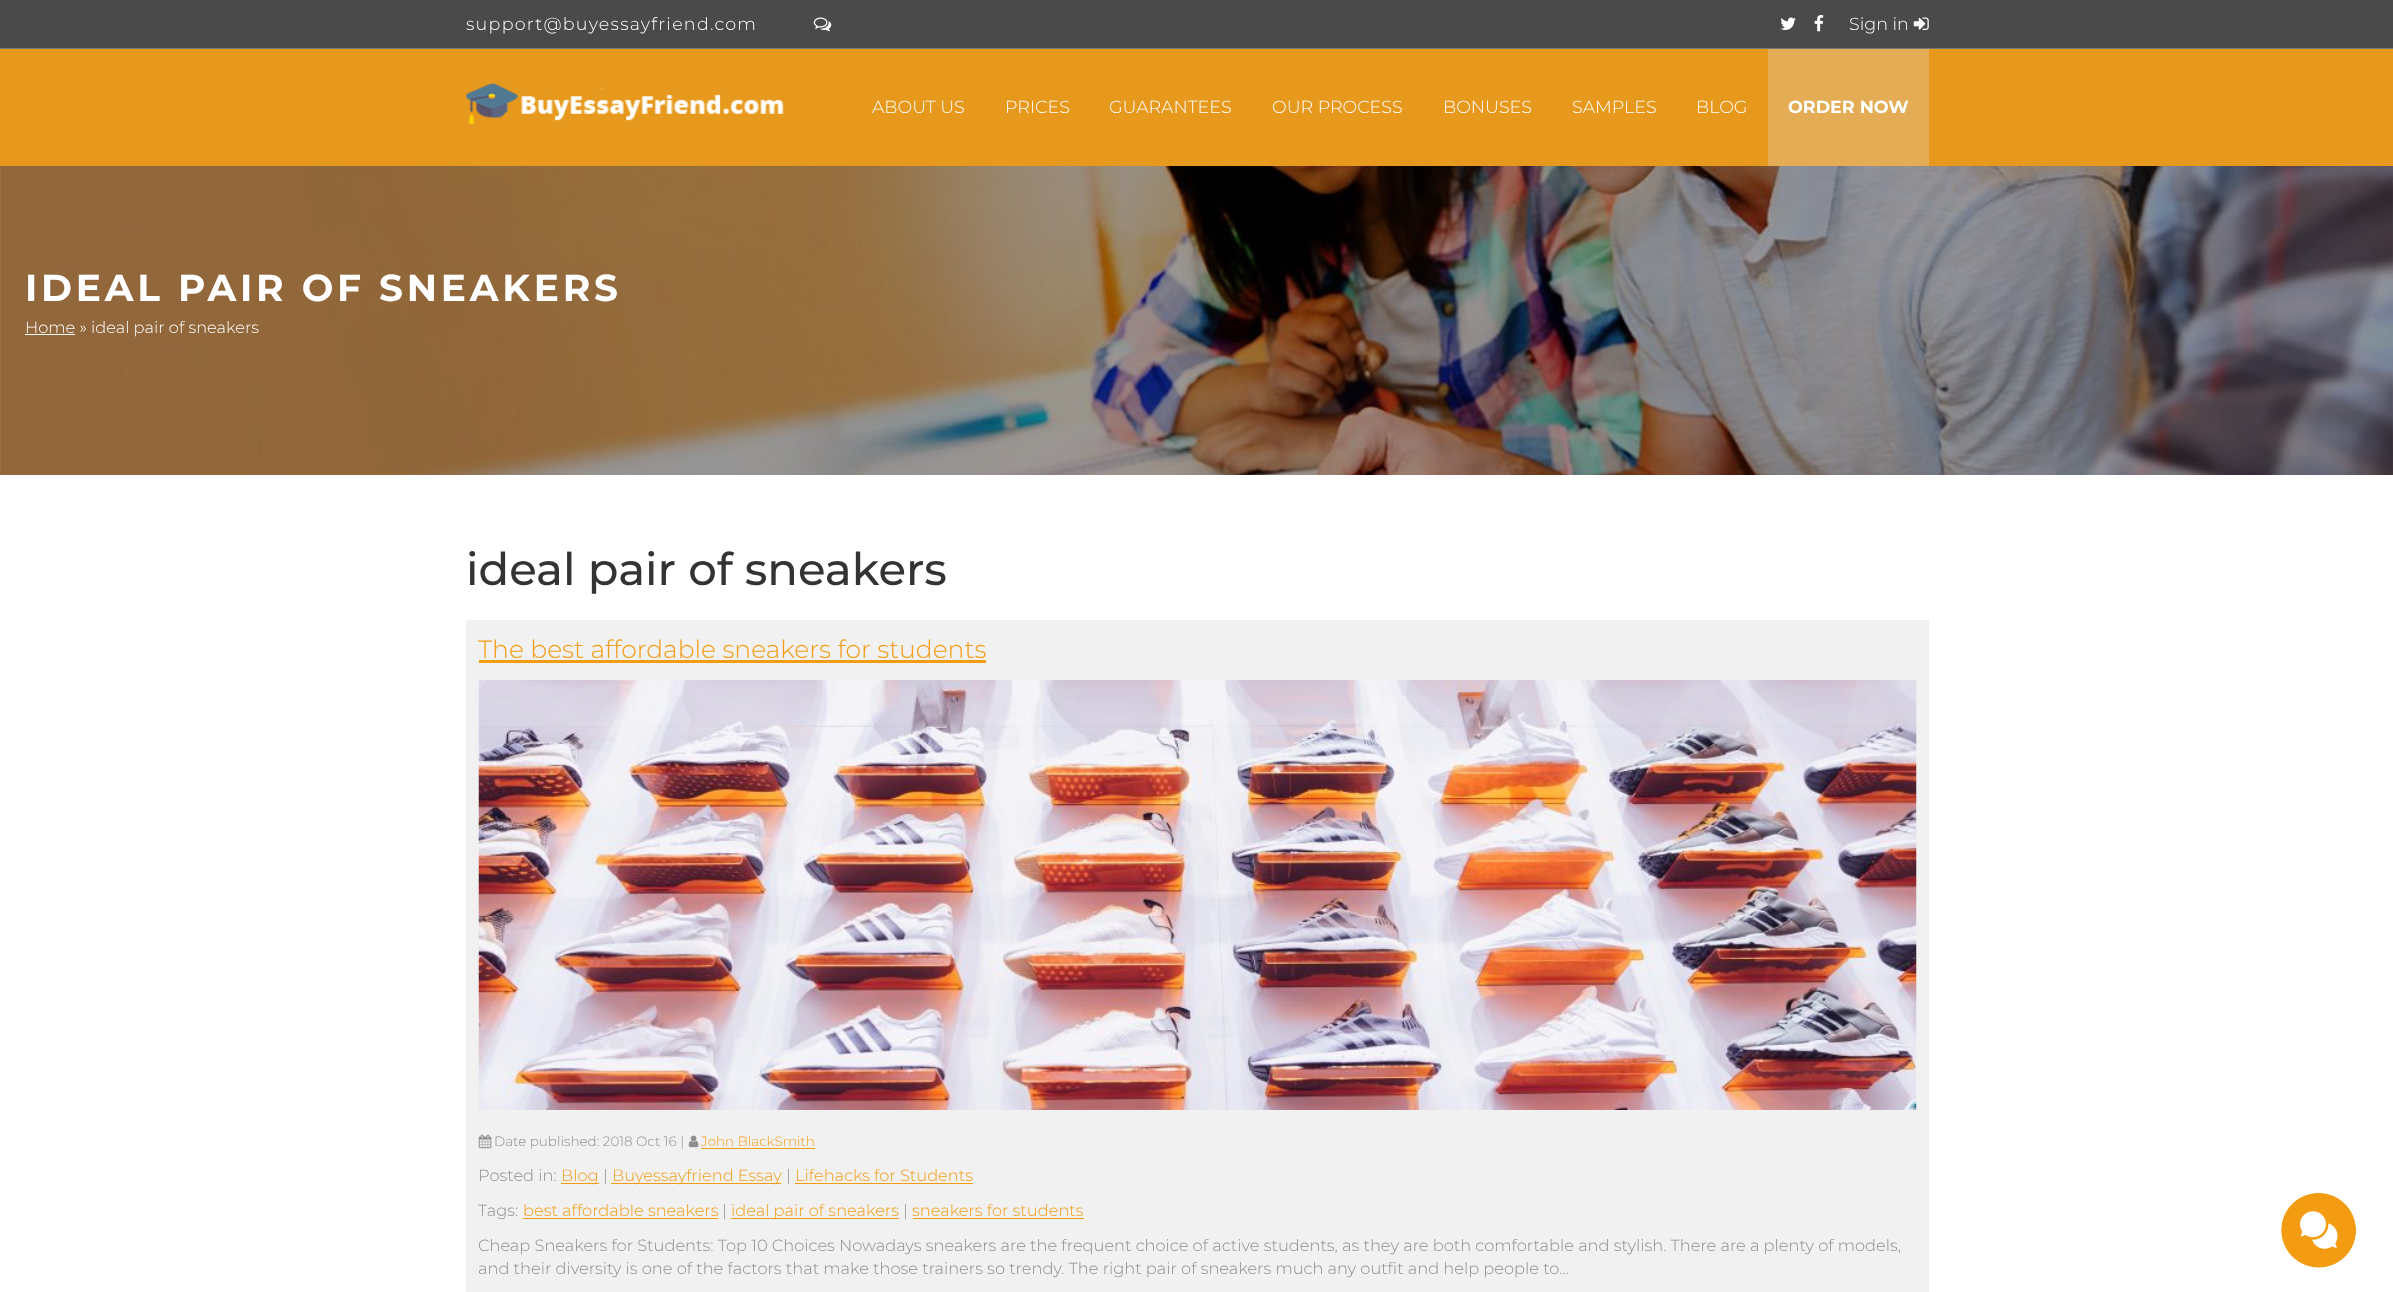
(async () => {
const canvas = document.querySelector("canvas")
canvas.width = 2393
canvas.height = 1292
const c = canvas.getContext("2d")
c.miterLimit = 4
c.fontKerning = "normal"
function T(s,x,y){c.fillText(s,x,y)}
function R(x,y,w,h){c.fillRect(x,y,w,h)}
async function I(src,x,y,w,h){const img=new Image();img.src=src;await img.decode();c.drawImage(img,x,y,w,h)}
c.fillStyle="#fff"
R(0,0,2393,1292)
c.fillStyle="#4a4a4a"
R(0,0,2393,48)
c.fillStyle="#777"
R(0,48,2393,1)
c.letterSpacing="1.25px"
c.font="300 17.5px Montserrat"
c.fillStyle="#fff"
T("support@buyessayfriend.com",466,30)
await I("1.png",813,17,19,15)
await I("2.png",1780,17,16,13)
await I("3.png",1814,15,10,17)
c.letterSpacing="0px"
T("Sign in",1849,30)
await I("4.png",1913,17,16,13)
c.fillStyle="#e6991c"
R(0,49,2393,117)
await I("5.png",466,83,318,41)
c.fillStyle="#fff"
T("ABOUT US",872,113)
T("PRICES",1005,113)
T("GUARANTEES",1109,113)
T("OUR PROCESS",1272,113)
T("BONUSES",1443,113)
T("SAMPLES",1572,113)
T("BLOG",1696,113)
c.fillStyle="#e4ad55"
R(1768,49,161,117)
c.font="bold 17.5px Montserrat"
c.fillStyle="#fff"
T("ORDER NOW",1788,113)
await I("6.png",0,166,2393,309)
c.letterSpacing="3.75px"
c.font="bold 37.5px Montserrat"
T("IDEAL PAIR OF SNEAKERS",25,301)
R(25,334,50,1)
c.letterSpacing="0px"
c.font="300 16.25px Montserrat"
T("Home » ideal pair of sneakers",25,333)
c.font="500 45px Montserrat"
c.fillStyle="#333"
T("ideal pair of sneakers",466,585)
c.fillStyle="#f1f1f1"
R(466,620,1463,672)
c.font="300 25px Montserrat"
c.fillStyle="#f39c12"
T("The best affordable sneakers for students",478,658)
R(479,660,507,3)
await I("7.png",478,680,1439,430)
await I("8.png",478,1134,14,15)
c.font="300 13.5px Montserrat"
c.fillStyle="#8e8e8e"
T("Date published: 2018 Oct 16 |",494,1146)
await I("9.png",688,1135,11,13)
c.fillStyle="#f39c12"
T("John BlackSmith",701,1146)
R(701,1148,114,1)
c.font="300 16.25px Montserrat"
c.fillStyle="#8e8e8e"
T("Posted in:",478,1181)
c.fillStyle="#f39c12"
R(561,1183,38,1)
T("Blog",561,1181)
c.fillStyle="#8e8e8e"
T("|",603,1181)
c.fillStyle="#f39c12"
R(611,1183,170,1)
T("Buyessayfriend Essay",612,1181)
c.fillStyle="#8e8e8e"
T("|",786,1181)
c.fillStyle="#f39c12"
T("Lifehacks for Students",795,1181)
R(795,1183,178,1)
c.fillStyle="#8e8e8e"
T("Tags:",478,1216)
c.fillStyle="#f39c12"
T("best affordable sneakers",523,1216)
R(523,1218,195,1)
c.fillStyle="#8e8e8e"
T("|",722,1216)
c.fillStyle="#f39c12"
R(731,1218,168,1)
T("ideal pair of sneakers",731,1216)
c.fillStyle="#8e8e8e"
T("|",903,1216)
c.fillStyle="#f39c12"
T("sneakers for students",912,1216)
R(913,1218,171,1)
c.fillStyle="#8e8e8e"
T("Cheap Sneakers for Students: Top 10 Choices Nowadays sneakers are the frequent choice of active students, as they are both comfortable and stylish. There are a plenty of models,",478,1251)
T("and their diversity is one of the factors that make those trainers so trendy. The right pair of sneakers much any outfit and help people to…",478,1274)
await I("10.png",2281,1193,75,75)
})()
